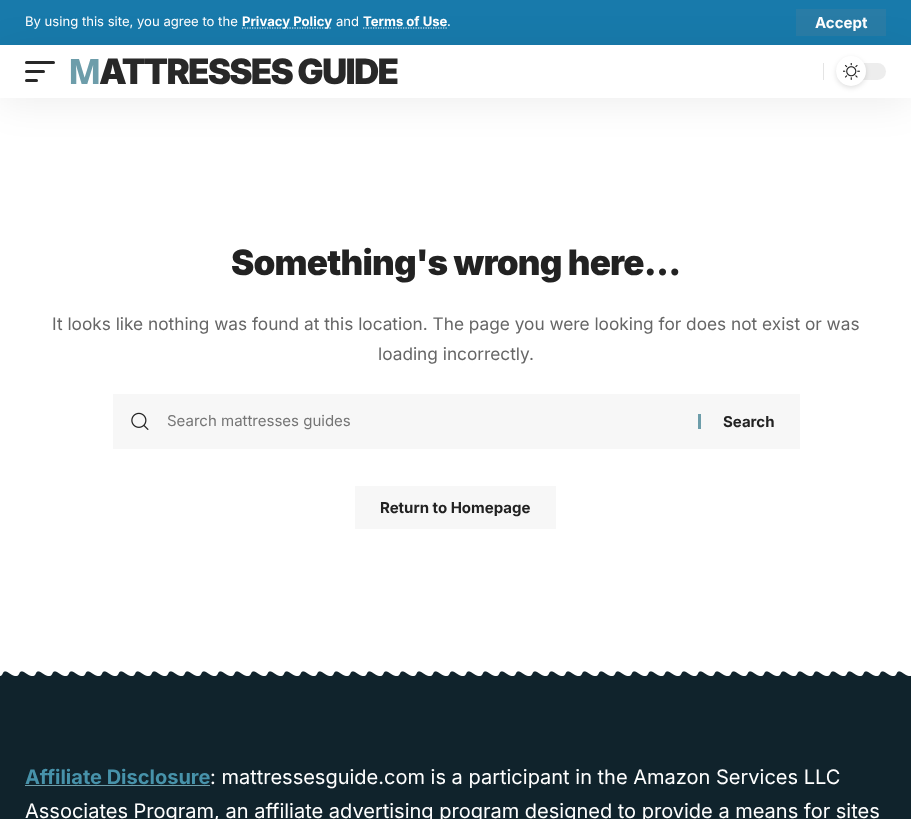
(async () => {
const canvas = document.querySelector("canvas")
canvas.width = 911
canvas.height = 819
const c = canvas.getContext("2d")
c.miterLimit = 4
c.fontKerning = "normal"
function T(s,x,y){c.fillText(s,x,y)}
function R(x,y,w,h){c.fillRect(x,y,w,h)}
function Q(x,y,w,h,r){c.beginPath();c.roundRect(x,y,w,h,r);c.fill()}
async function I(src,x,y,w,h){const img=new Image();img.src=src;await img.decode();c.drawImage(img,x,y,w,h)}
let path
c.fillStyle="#fff"
R(0,0,911,819)
c.fillStyle="#187aab"
R(0,0,911,45)
c.font="13.1px Inter"
c.fillStyle="#fff"
T("By using this site, you agree to the",25,26)
path = new Path2D("M242 28h90")
c.strokeStyle="#fff"
c.lineWidth=1.2
c.setLineDash([1.25,1.25])
c.stroke(path)
c.font="bold 13.1px Inter"
T("Privacy Policy",242,26)
c.font="13.1px Inter"
T("and",336,26)
c.font="bold 13.1px Inter"
T("Terms of Use",363,26)
path = new Path2D("M363 28h84.5")
c.stroke(path)
c.font="13.1px Inter"
T(".",447,26)
c.fillStyle="#297ca6"
R(796,9,90,27)
c.font="bold 15px Inter"
c.fillStyle="#fff"
T("Accept",815,28)
c.fillStyle="#00000012"
c.filter="blur(19px)"
c.beginPath()
c.rect(0,50,911,53)
c.fill()
c.filter="none"
c.fillStyle="#fff"
R(0,45,911,53)
c.fillStyle="#282828"
Q(25,61,30,3,1.5)
Q(25,70,20,3,1.5)
Q(25,79,13,3,1.5)
c.letterSpacing="-1.75px"
c.font="800 35px Noto Sans"
c.fillStyle="#6d9daa"
T("M",68,84)
c.font="900 35px Inter"
c.fillStyle="#282828"
T("ATTRESSES GUIDE",99,84)
c.fillStyle="#e4e4e4"
R(823,63,1,17)
c.fillStyle="#ededed"
Q(836,63,50,17,8.5)
c.fillStyle="#0000001f"
c.filter="blur(2.5px)"
c.beginPath()
c.roundRect(836,58,30,30,15)
c.fill()
c.filter="none"
c.fillStyle="#fff"
c.beginPath()
c.arc(851,71,15,0,7)
c.fill()
await I("1.png",843,63,17,17)
c.letterSpacing="-0.8px"
c.fillStyle="#222"
T("Something's wrong here...",231,275)
c.letterSpacing="0px"
c.font="17.25px Inter"
c.fillStyle="#666"
T("It looks like nothing was found at this location. The page you were looking for does not exist or was",52,330)
T("loading incorrectly.",378,360)
c.fillStyle="#f7f7f7"
R(113,394,687,55)
await I("2.png",131,412,18,18)
c.font="15px Inter"
c.fillStyle="#757575"
T("Search mattresses guides",167,426)
c.fillStyle="#6d9daa"
R(698,414,3,15)
c.font="bold 15px Inter"
c.fillStyle="#222"
T("Search",723,427)
c.fillStyle="#f7f7f7"
R(355,486,201,43)
c.fillStyle="#222"
T("Return to Homepage",380,513)
c.fillStyle="#10232c"
R(0,671,911,148)
await I("3.png",0,671,911,5)
c.font="bold 20px Inter"
c.fillStyle="#4792aa"
T("Affiliate Disclosure",25,784)
c.fillStyle="#6d9daa"
R(25,785,185,1)
c.font="20px Inter"
c.fillStyle="#fff"
T(": mattressesguide.com is a participant in the Amazon Services LLC",210,784)
T("Associates Program, an affiliate advertising program designed to provide a means for sites",25,818)
})()
